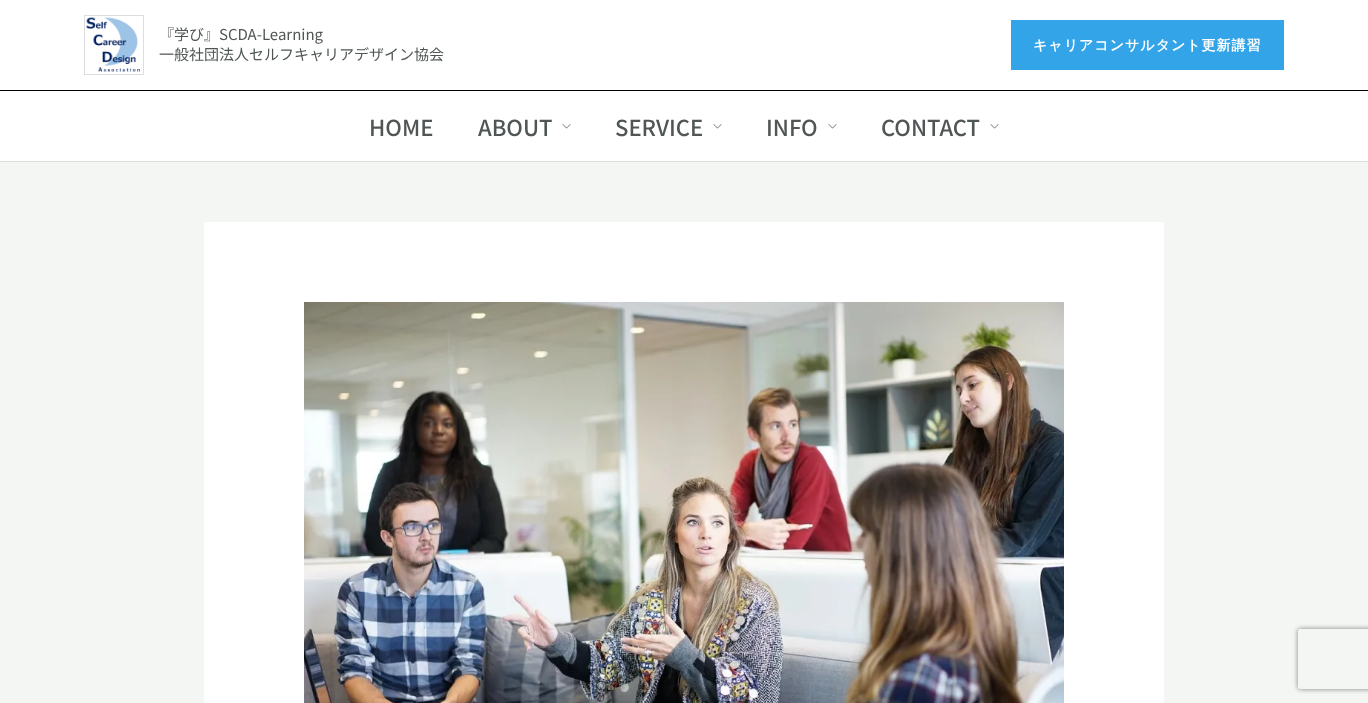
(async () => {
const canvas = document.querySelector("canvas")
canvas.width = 1368
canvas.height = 703
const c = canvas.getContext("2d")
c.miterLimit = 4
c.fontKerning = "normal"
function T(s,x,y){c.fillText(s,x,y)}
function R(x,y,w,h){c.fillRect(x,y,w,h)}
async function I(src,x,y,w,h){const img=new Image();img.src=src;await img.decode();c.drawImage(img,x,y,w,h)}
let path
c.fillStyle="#f3f6f3"
R(0,0,1368,703)
c.fillStyle="#fff"
R(0,0,1368,90)
c.fillStyle="#000"
R(0,90,1368,1)
await I("1.png",84,15,60,60)
c.font="15px Noto Sans JP"
c.fillStyle="#4f5655"
T("『学び』SCDA-Learning",159,40)
T("一般社団法人セルフキャリアデザイン協会",159,60)
c.fillStyle="#33a4e8"
R(1011,20,273,50)
c.letterSpacing="1px"
c.font="bold 14px WenQuanYi Zen Hei"
c.fillStyle="#fff"
T("キャリアコンサルタント更新講習",1033,50)
R(0,91,1368,70)
c.fillStyle="#ddd"
R(0,161,1368,1)
c.letterSpacing="0px"
c.font="500 22px Noto Sans JP"
c.fillStyle="#4f5655"
T("HOME",369,136)
T("ABOUT",478,136)
await I("2.png",562,124,9,5)
T("SERVICE",615,136)
await I("2.png",713,124,9,5)
T("INFO",766,136)
await I("2.png",828,124,9,5)
T("CONTACT",881,136)
await I("2.png",990,124,9,5)
c.fillStyle="#fff"
R(204,222,960,481)
await I("3.png",304,302,760,401)
c.save()
path = new Path2D("M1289 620h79v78h-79zm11 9h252c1 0 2 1 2 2v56c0 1-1 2-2 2h-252c-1 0-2-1-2-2v-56c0-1 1-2 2-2z")
c.clip(path,"evenodd")
c.fillStyle="#808080"
c.filter="blur(2.5px)"
c.beginPath()
c.roundRect(1298,629,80,60,2)
c.fill()
c.filter="none"
c.restore()
})()
